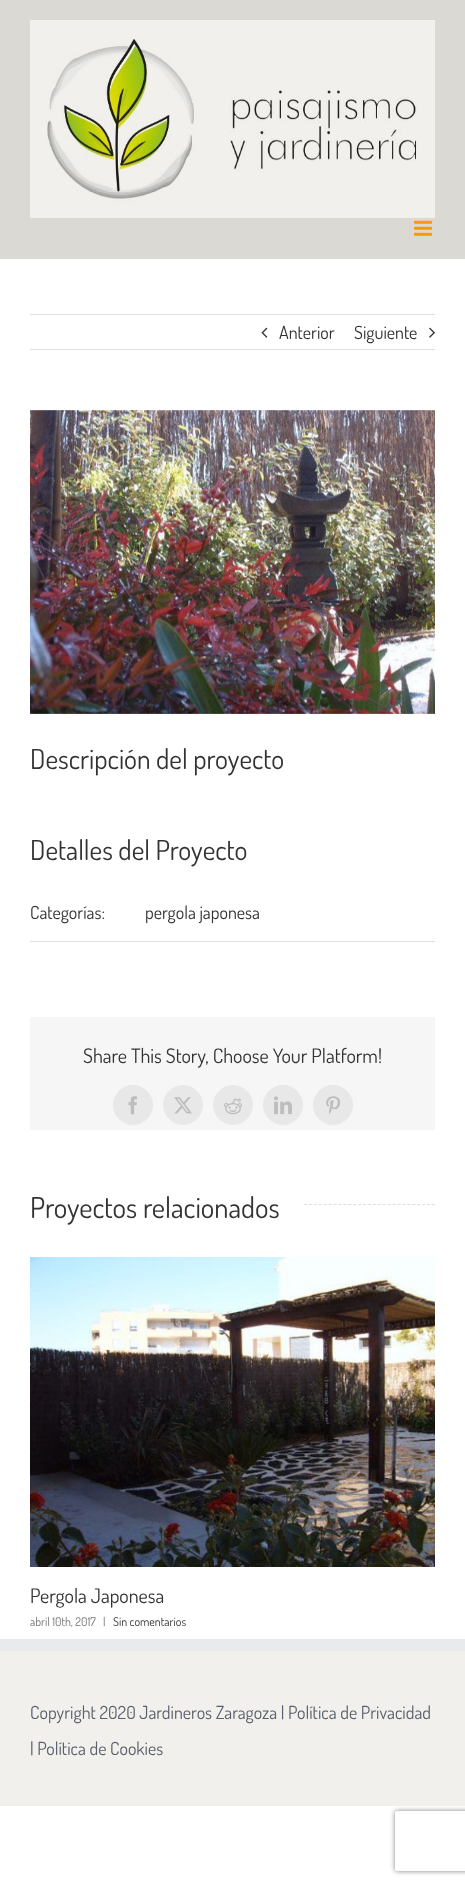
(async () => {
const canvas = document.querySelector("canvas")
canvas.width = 465
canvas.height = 1885
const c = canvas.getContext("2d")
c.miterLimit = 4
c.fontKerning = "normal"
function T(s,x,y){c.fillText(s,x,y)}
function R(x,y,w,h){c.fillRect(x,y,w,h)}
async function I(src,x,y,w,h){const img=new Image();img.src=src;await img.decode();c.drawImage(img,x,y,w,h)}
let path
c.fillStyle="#fff"
R(0,0,465,1885)
c.fillStyle="#dbd9d4"
R(0,0,465,259)
await I("1.png",30,20,405,198)
await I("2.png",414,220,18,16)
c.fillStyle="#e0dede"
R(30,314,405,1)
R(30,349,405,1)
await I("3.png",261,327,7,11)
c.font="18px Dosis"
c.fillStyle="#333"
T("Anterior",279,339)
T("Siguiente",354,339)
await I("4.png",429,327,6,11)
await I("5.png",30,410,405,304)
c.font="27.5px Dosis"
T("Descripción del proyecto",30,769)
T("Detalles del Proyecto",30,860)
c.fillStyle="#e0dede"
R(30,941,405,1)
c.font="18px Dosis"
c.fillStyle="#333"
T("Categorías:",30,919)
T("pergola japonesa",145,919)
c.fillStyle="#f6f6f6"
R(30,1017,405,113)
c.font="20px Dosis"
c.fillStyle="#333"
T("Share This Story, Choose Your Platform!",83,1063)
c.fillStyle="#e8e8e8"
c.beginPath()
c.arc(133,1105,19.5,0,7)
c.fill()
c.strokeStyle="#e8e8e8"
c.stroke()
await I("6.png",128,1096,9,19)
c.beginPath()
c.arc(183,1105,19.5,0,7)
c.fill()
c.stroke()
await I("7.png",174,1097,18,17)
c.beginPath()
c.arc(233,1105,19.5,0,7)
c.fill()
c.stroke()
await I("8.png",224,1098,18,17)
c.beginPath()
c.arc(283,1105,19.5,0,7)
c.fill()
c.stroke()
await I("9.png",274,1096,18,19)
c.beginPath()
c.arc(333,1105,19.5,0,7)
c.fill()
c.stroke()
await I("10.png",326,1096,15,18)
c.font="28.75px Dosis"
c.fillStyle="#333"
T("Proyectos relacionados",30,1218)
path = new Path2D("M304 1204.5h131")
c.strokeStyle="#e0dede"
c.setLineDash([3,1.92])
c.stroke(path)
await I("11.png",30,1257,405,310)
c.font="20px Dosis"
T("Pergola Japonesa",30,1603)
c.font="12px Dosis"
c.fillStyle="#747474"
T("abril 10th, 2017",30,1626)
T("|",103,1626)
c.fillStyle="#333"
T("Sin comentarios",113,1626)
c.fillStyle="#f1f0ec"
R(0,1651,465,155)
c.fillStyle="#e9eaee"
R(0,1639,465,12)
c.font="18px Dosis"
c.fillStyle="#595f6b"
T("Copyright 2020 Jardineros Zaragoza | Política de Privacidad",30,1719)
T("| Política de Cookies",30,1755)
c.save()
path = new Path2D("M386 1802h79v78h-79zm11 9h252c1 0 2 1 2 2v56c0 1-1 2-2 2h-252c-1 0-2-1-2-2v-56c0-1 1-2 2-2z")
c.clip(path,"evenodd")
c.fillStyle="#808080"
c.filter="blur(2.5px)"
c.beginPath()
c.roundRect(395,1811,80,60,2)
c.fill()
c.filter="none"
c.restore()
})()
